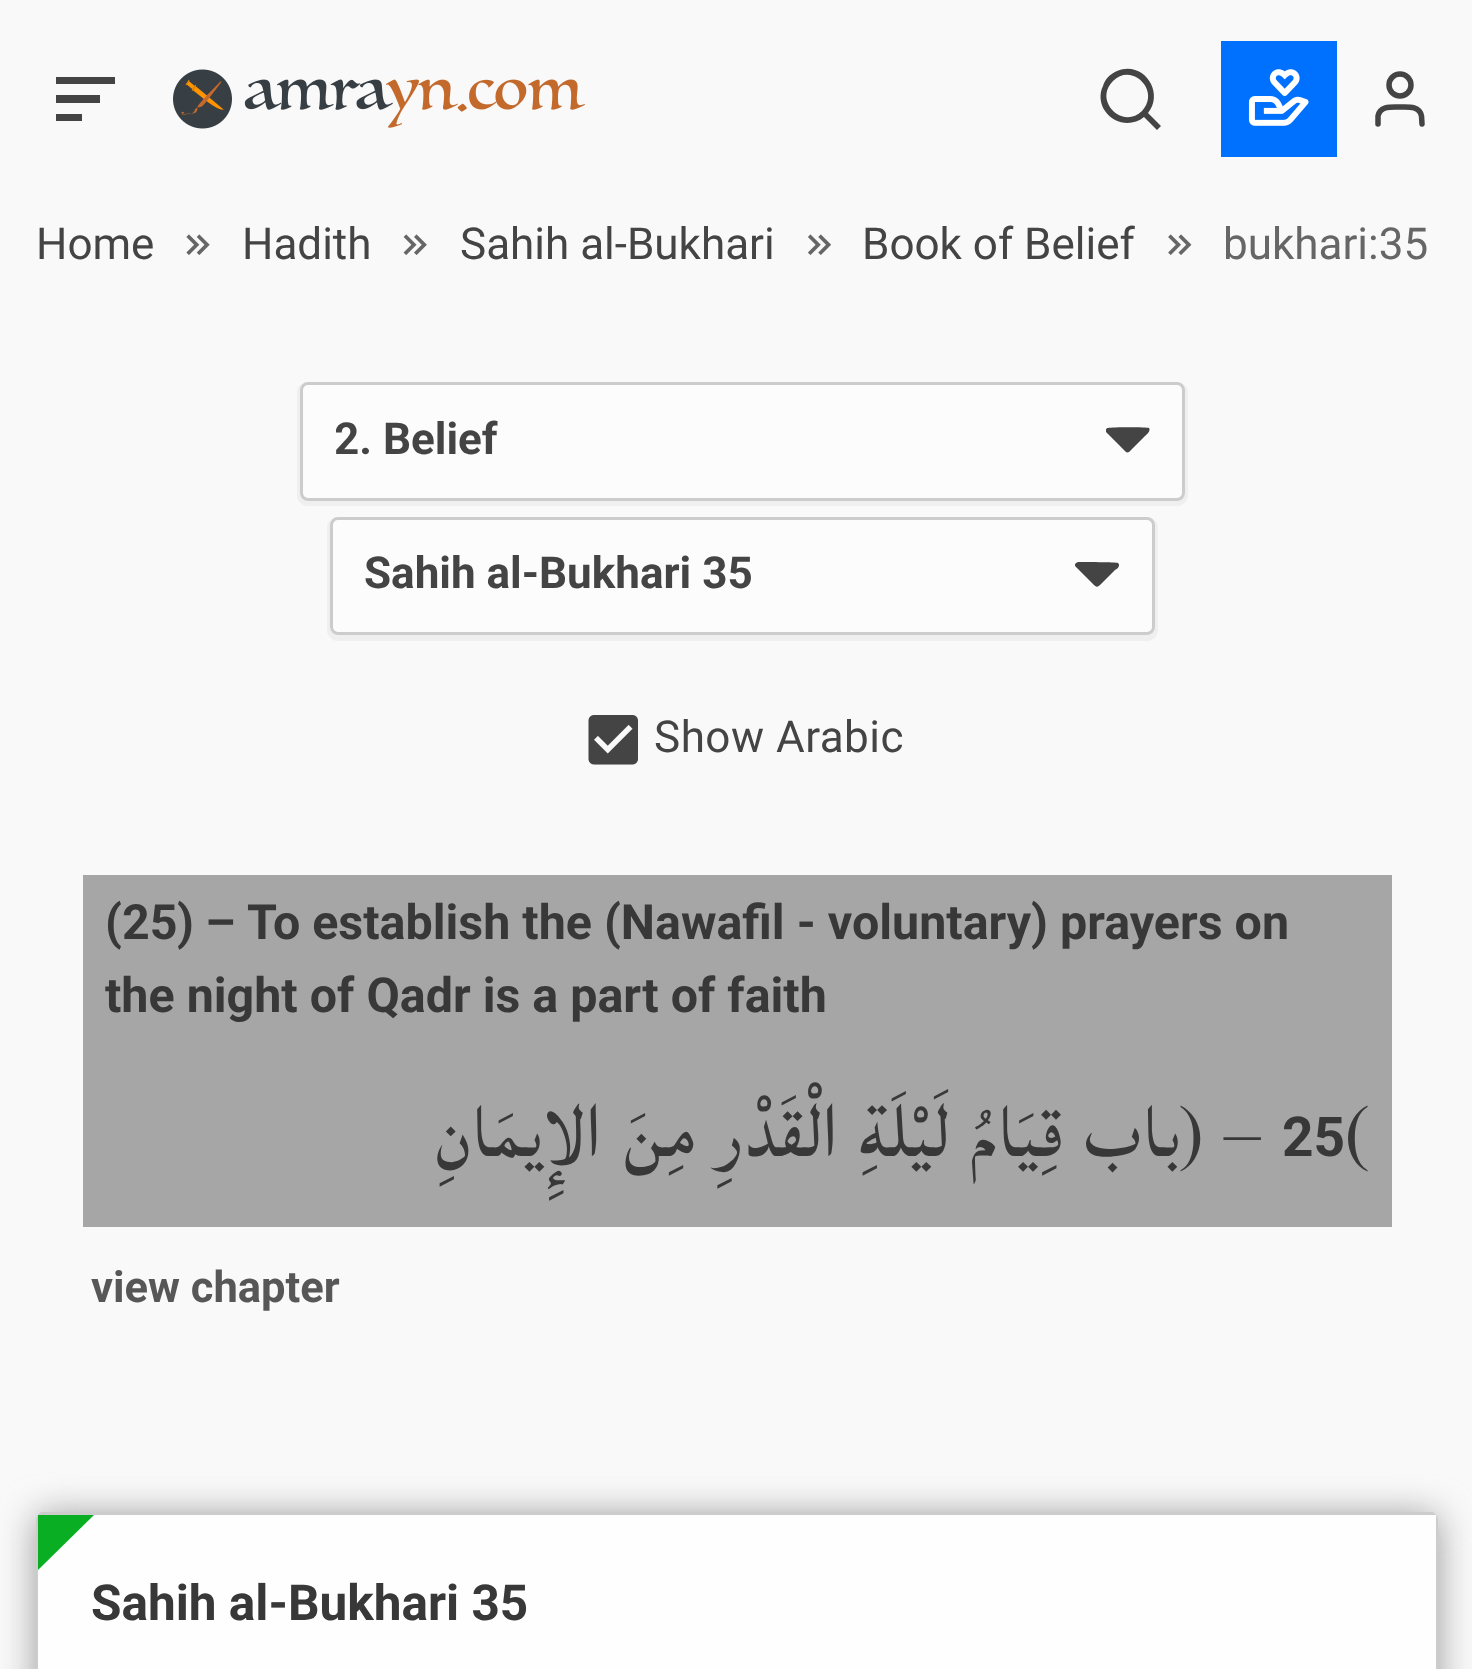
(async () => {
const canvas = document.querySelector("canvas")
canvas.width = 1472
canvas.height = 1669
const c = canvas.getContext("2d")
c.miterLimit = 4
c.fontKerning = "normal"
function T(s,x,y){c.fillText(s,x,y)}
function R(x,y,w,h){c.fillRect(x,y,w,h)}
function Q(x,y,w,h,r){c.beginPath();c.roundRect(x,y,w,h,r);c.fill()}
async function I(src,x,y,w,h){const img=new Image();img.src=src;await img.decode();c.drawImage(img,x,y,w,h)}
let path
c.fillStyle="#f9f9f9"
R(0,0,1472,1669)
c.fillStyle="#444"
path = new Path2D("M56 95h44v8h-44zm0-18h59v7h-59zm0 44h26v-7h-26z")
c.fill(path)
await I("1.png",173,69,412,60)
path = new Path2D("M1148 113l13 13l-4 4l-13-13c-12 10-30 7-39-6c-5-7-6-17-2-25c2-7 7-12 14-15c26-11 48 21 31 42zm-6-2c19-20-10-49-29-30c-20 20 10 49 29 30z")
c.fill(path)
c.fillStyle="#0071ff"
R(1221,41,116,116)
await I("2.png",1248,69,61,57)
path = new Path2D("M1422 124l-.5-8c-2-10.5-14-9-21.5-9c-8 0-20-1.5-22 9v8")
c.strokeStyle="#444"
c.lineWidth=5.5
c.lineCap="round"
c.lineJoin="round"
c.stroke(path)
c.beginPath()
c.arc(1400,85,11,0,7)
c.stroke()
c.font="44px Roboto"
c.fillStyle="#444"
T("Home",36,259)
await I("3.png",186,234,24,21)
T("Hadith",242,259)
await I("4.png",403,234,24,21)
T("Sahih al-Bukhari",460,259)
await I("5.png",807,234,25,21)
T("Book of Belief",862,259)
await I("6.png",1168,234,24,21)
c.fillStyle="#666"
T("bukhari:35",1223,259)
c.fillStyle="#efefef"
path = new Path2D("M308 382c-6 0-11 5-11 11v102c0 6 5 11 11 11h869c6 0 11-5 11-11v-102c0-6-5-11-11-11zm0 0c-5 0-8 4-8 8v102c0 5 3 8 8 8h869c5 0 8-3 8-8v-102c0-4-3-8-8-8z")
c.fill(path,"evenodd")
c.fillStyle="#fcfcfc"
Q(300,382,885,119,8)
c.save()
c.beginPath()
c.rect(1106,418,44,44)
c.clip()
c.fillStyle="#444"
path = new Path2D("M1149 428c-2-1-37-1-41 0c-2 0-3 3-2 4l16 16c6 6 5 6 11 0l12-12c2-2 6-5 4-8z")
c.fill(path)
c.restore()
c.beginPath()
c.roundRect(301.5,383.5,882,116,6.5)
c.strokeStyle="#ccc"
c.lineWidth=3
c.lineJoin="miter"
c.stroke()
c.save()
c.beginPath()
c.rect(336,413,825,57)
c.clip()
c.font="bold 44px Roboto"
c.fillStyle="#444"
T("2. Belief",334,454)
c.restore()
c.fillStyle="#efefef"
path = new Path2D("M338 517c-6 0-11 5-11 11v102c0 6 5 11 11 11h809c6 0 11-5 11-11v-102c0-6-5-11-11-11c4 0 8 4 8 8v102c0 5-4 8-8 8h-809c-4 0-8-3-8-8v-102c0-4 4-8 8-8z")
c.fill(path)
c.fillStyle="#fcfcfc"
Q(330,517,825,118,8)
c.fillStyle="#444"
path = new Path2D("M1118 563c-1-1-36-1-40-1c-3 1-4 3-2 5l16 16c5 5 5 5 10 0l13-13c2-1 6-4 3-7z")
c.fill(path)
c.beginPath()
c.roundRect(331.5,518.5,822,115,6.5)
c.stroke()
c.font="bold 44px Roboto"
T("Sahih al-Bukhari 35",364,588)
await I("7.png",588,715,50,50)
c.letterSpacing="0.5px"
c.font="44px 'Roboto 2'"
T("Show Arabic",654,752)
c.fillStyle="#a7a6a6"
R(83,875,1309,352)
c.letterSpacing="0px"
c.font="bold 48.4px Roboto"
c.fillStyle="#393838"
T("(25",105,939)
c.wordSpacing="-1px"
T(") –",177,939)
c.wordSpacing="0px"
T("To establish the (Nawafil - voluntary) prayers on",247,939)
T("the night of Qadr is a part of faith",105,1012)
c.direction="rtl"
c.font="96.25px Lateef"
T("باب قِيَامُ لَيْلَةِ الْقَدْرِ مِنَ الإِيمَانِ",1179,1156)
c.direction="ltr"
T(") –",1179,1156)
c.font="bold 55px Roboto"
T("25",1282,1156)
c.font="96.25px Lateef"
T("(",1345,1156)
c.font="bold 43.5px Roboto"
c.fillStyle="#575757"
T("view chapter",91,1302)
c.fillStyle="#999"
c.filter="blur(18px)"
c.beginPath()
c.roundRect(36,1515,1402,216,8)
c.fill()
c.filter="none"
c.fillStyle="#fefefe"
path = new Path2D("M44 1515h1386c3 0 6 3 6 6v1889h-1398v-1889c0-3 3-6 6-6z")
c.fill(path)
c.fillStyle="#ccc"
path = new Path2D("M44 1515c-1 0-3 1-4 2l-2-2l3-3h1392l3 3l-2 2c-1-1-3-2-4-2z")
c.fill(path)
path = new Path2D("M1436 1515c1 1 2 4 2 6v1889c0 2 0 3-1 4l-1-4v-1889c0-2-1-3-2-4z")
c.fill(path)
path = new Path2D("M37 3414c-1-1-1-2-1-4v-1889c0-2 1-5 2-6l2 2c-1 1-2 2-2 4v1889z")
c.fill(path)
c.fillStyle="#fefefe"
R(39,1515,1397,6)
c.fillStyle="#0aae22"
path = new Path2D("M38 1515h56l-56 55z")
c.fill(path)
c.font="bold 49.5px Roboto"
c.fillStyle="#393838"
T("Sahih al-Bukhari 35",91,1620)
})()
